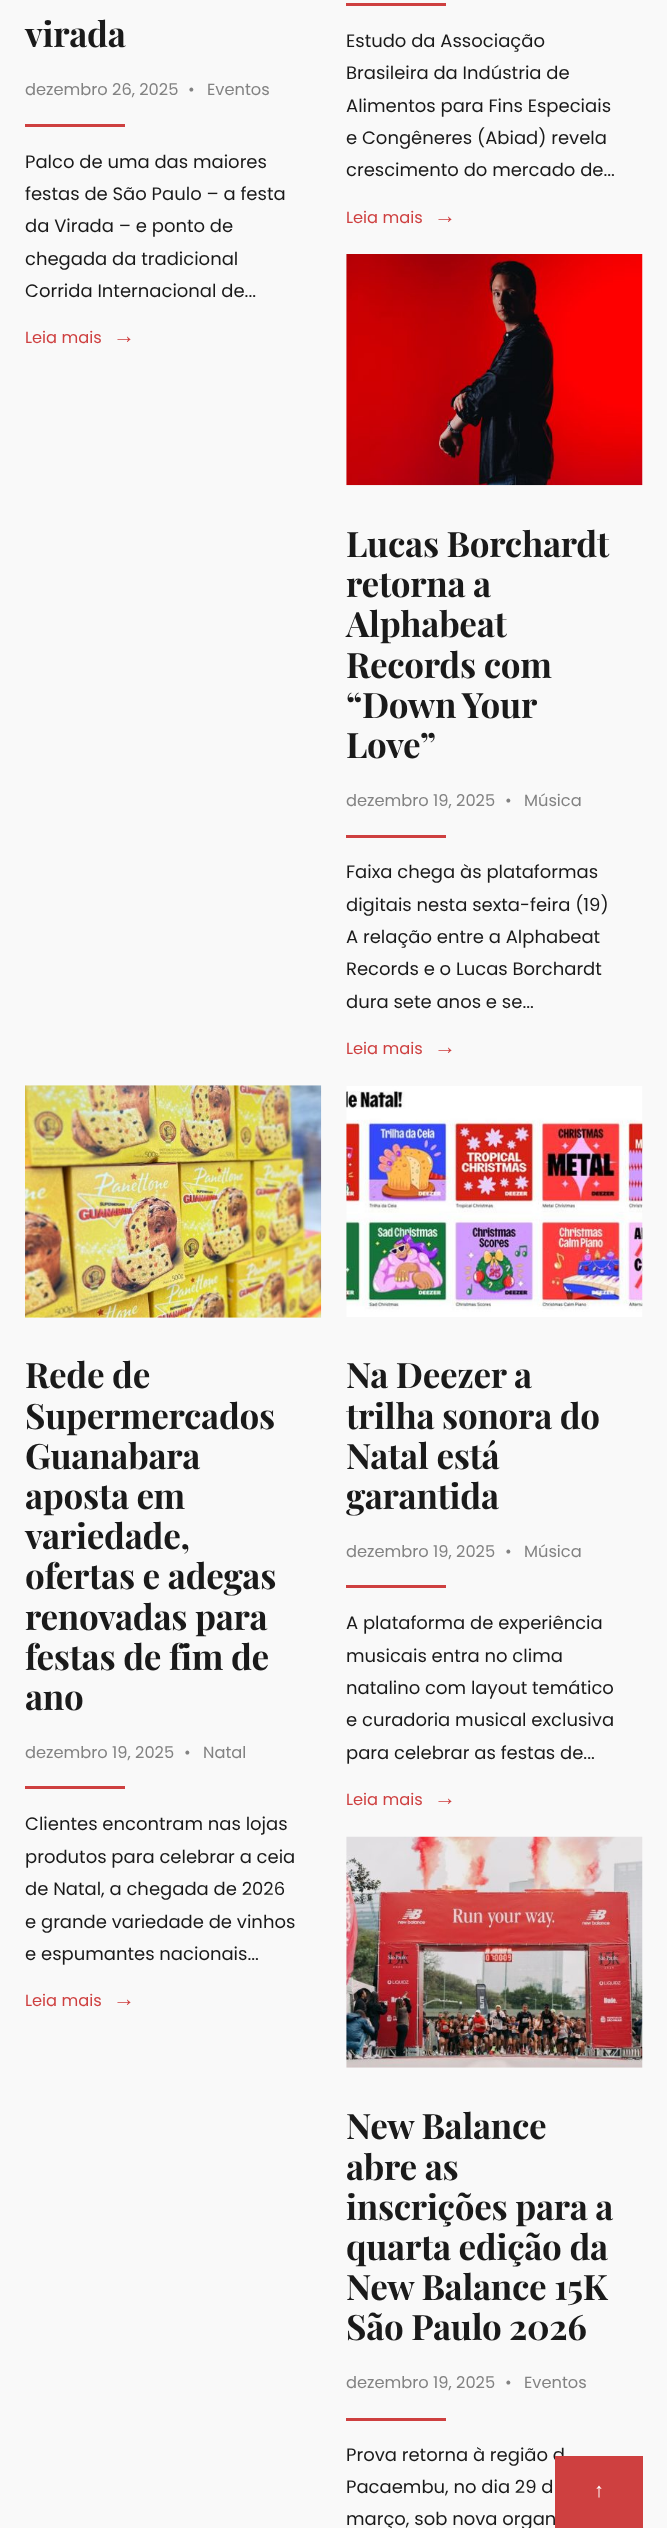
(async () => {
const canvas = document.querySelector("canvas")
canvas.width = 667
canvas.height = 2528
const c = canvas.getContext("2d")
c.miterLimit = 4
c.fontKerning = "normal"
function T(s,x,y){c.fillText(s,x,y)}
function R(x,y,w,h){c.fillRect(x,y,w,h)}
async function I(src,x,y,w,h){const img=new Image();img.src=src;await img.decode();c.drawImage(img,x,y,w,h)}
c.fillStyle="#f9f9f9"
R(0,0,667,2528)
c.letterSpacing="-0.3px"
c.font="bold 35px Playfair Display"
c.fillStyle="#1a1a1a"
T("virada",25,47)
c.letterSpacing="0px"
c.font="16.25px Poppins"
c.fillStyle="#828282"
T("dezembro 26, 2025",25,95)
T("•",188,95)
T("Eventos",207,95)
c.fillStyle="#ce4040"
R(25,124,100,3)
c.font="18px Poppins"
c.fillStyle="#1a1a1a"
T("Palco de uma das maiores",25,168)
T("festas de São Paulo – a festa",25,200)
T("da Virada – e ponto de",25,232)
T("chegada da tradicional",25,265)
T("Corrida Internacional de...",25,297)
c.font="16.25px Poppins"
c.fillStyle="#ce4040"
T("Leia mais",25,343)
c.font="22px Liberation Serif"
T("→",113,343)
R(346,3,100,3)
c.font="18px Poppins"
c.fillStyle="#1a1a1a"
T("Estudo da Associação",346,47)
T("Brasileira da Indústria de",346,79)
T("Alimentos para Fins Especiais",346,112)
T("e Congêneres (Abiad) revela",346,144)
T("crescimento do mercado de...",346,176)
c.font="16.25px Poppins"
c.fillStyle="#ce4040"
T("Leia mais",346,223)
c.font="22px Liberation Serif"
T("→",434,223)
await I("1.png",346,254,297,232)
c.letterSpacing="-0.3px"
c.font="bold 35px Playfair Display"
c.fillStyle="#1a1a1a"
T("Lucas Borchardt",346,557)
T("retorna a",346,597)
T("Alphabeat",346,637)
T("Records com",346,678)
c.wordSpacing="-1px"
T("“Down Your",346,718)
c.wordSpacing="0px"
T("Love”",346,758)
c.letterSpacing="0px"
c.font="16.25px Poppins"
c.fillStyle="#828282"
T("dezembro 19, 2025",346,806)
T("•",505,806)
T("Música",524,806)
c.fillStyle="#ce4040"
R(346,835,100,3)
c.font="18px Poppins"
c.fillStyle="#1a1a1a"
T("Faixa chega às plataformas",346,878)
T("digitais nesta sexta-feira (19)",346,911)
T("A relação entre a Alphabeat",346,943)
T("Records e o Lucas Borchardt",346,975)
T("dura sete anos e se...",346,1008)
c.font="16.25px Poppins"
c.fillStyle="#ce4040"
T("Leia mais",346,1054)
c.font="22px Liberation Serif"
T("→",434,1054)
await I("2.png",25,1085,297,233)
c.letterSpacing="-0.3px"
c.font="bold 35px Playfair Display"
c.fillStyle="#1a1a1a"
T("Rede de",25,1388)
T("Supermercados",25,1429)
T("Guanabara",25,1469)
T("aposta em",25,1509)
T("variedade,",25,1549)
T("ofertas e adegas",25,1589)
T("renovadas para",25,1630)
T("festas de fim de",25,1670)
T("ano",25,1710)
c.letterSpacing="0px"
c.font="16.25px Poppins"
c.fillStyle="#828282"
T("dezembro 19, 2025",25,1758)
T("•",184,1758)
T("Natal",203,1758)
c.fillStyle="#ce4040"
R(25,1786,100,3)
c.font="18px Poppins"
c.fillStyle="#1a1a1a"
T("Clientes encontram nas lojas",25,1830)
T("produtos para celebrar a ceia",25,1863)
T("de Natal, a chegada de 2026",25,1895)
T("e grande variedade de vinhos",25,1928)
T("e espumantes nacionais...",25,1960)
c.font="16.25px Poppins"
c.fillStyle="#ce4040"
T("Leia mais",25,2006)
c.font="22px Liberation Serif"
T("→",113,2006)
await I("3.png",346,1086,297,231)
c.letterSpacing="-0.3px"
c.font="bold 35px Playfair Display"
c.fillStyle="#1a1a1a"
T("Na Deezer a",346,1388)
T("trilha sonora do",346,1429)
T("Natal está",346,1469)
T("garantida",346,1509)
c.letterSpacing="0px"
c.font="16.25px Poppins"
c.fillStyle="#828282"
T("dezembro 19, 2025",346,1557)
T("•",505,1557)
T("Música",524,1557)
c.fillStyle="#ce4040"
R(346,1585,100,3)
c.font="18px Poppins"
c.fillStyle="#1a1a1a"
T("A plataforma de experiência",346,1629)
T("musicais entra no clima",346,1662)
T("natalino com layout temático",346,1694)
T("e curadoria musical exclusiva",346,1726)
T("para celebrar as festas de...",346,1759)
c.font="16.25px Poppins"
c.fillStyle="#ce4040"
T("Leia mais",346,1805)
c.font="22px Liberation Serif"
T("→",434,1805)
await I("4.png",346,1836,297,232)
c.letterSpacing="-0.3px"
c.font="bold 35px Playfair Display"
c.fillStyle="#1a1a1a"
T("New Balance",346,2139)
T("abre as",346,2180)
T("inscrições para a",346,2220)
T("quarta edição da",346,2260)
T("New Balance 15K",346,2300)
T("São Paulo 2026",346,2340)
c.letterSpacing="0px"
c.font="16.25px Poppins"
c.fillStyle="#828282"
T("dezembro 19, 2025",346,2388)
T("•",505,2388)
T("Eventos",524,2388)
c.fillStyle="#ce4040"
R(346,2418,100,3)
c.font="18px Poppins"
c.fillStyle="#1a1a1a"
T("Prova retorna à região d",346,2461)
T("Pacaembu, no dia 29 d",346,2493)
T("março, sob nova organ",346,2525)
c.fillStyle="#ce4040"
R(555,2456,88,72)
c.font="20px Liberation Serif"
c.fillStyle="#fff"
T("↑",594,2497)
})()
